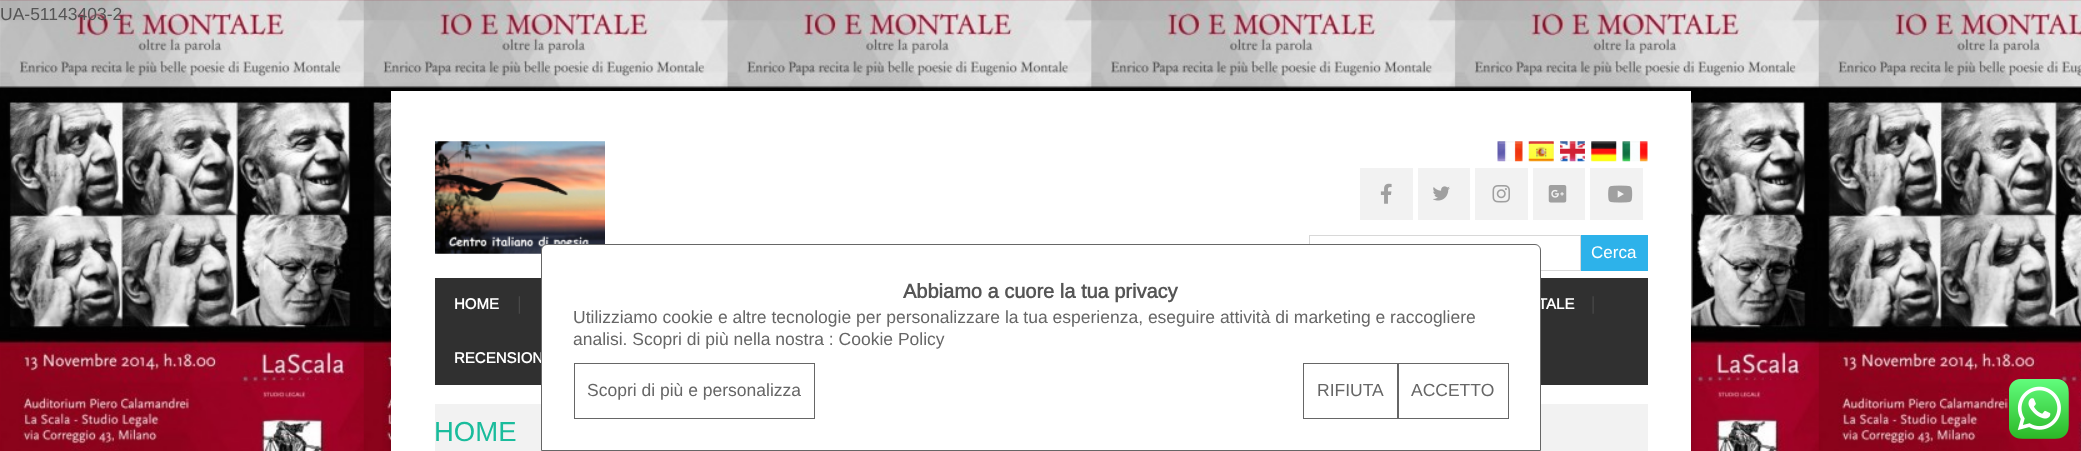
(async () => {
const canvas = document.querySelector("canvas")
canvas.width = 2081
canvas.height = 451
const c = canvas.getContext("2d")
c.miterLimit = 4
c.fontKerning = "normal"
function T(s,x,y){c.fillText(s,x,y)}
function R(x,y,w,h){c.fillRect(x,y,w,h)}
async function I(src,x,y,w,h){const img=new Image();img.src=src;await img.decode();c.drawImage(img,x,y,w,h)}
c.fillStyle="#fff"
R(0,0,2081,451)
await I("1.png",0,0,2081,451)
c.font="17.5px Arimo"
c.fillStyle="#555"
T("UA-51143403-2",0,20)
c.fillStyle="#00000033"
c.filter="blur(4px)"
c.beginPath()
c.rect(391,91,1300,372)
c.fill()
c.filter="none"
c.fillStyle="#fff"
R(391,91,1300,360)
await I("2.png",435,141,170,113)
await I("3.png",1497,141,26,21)
await I("4.png",1528,141,26,21)
await I("5.png",1560,141,25,21)
await I("6.png",1591,141,26,21)
await I("7.png",1622,141,26,21)
c.fillStyle="#f2f2f2"
R(1360,168,53,52)
await I("8.png",1380,183,12,21)
R(1418,168,52,52)
await I("9.png",1433,186,17,15)
R(1475,168,53,52)
await I("10.png",1492,185,18,18)
R(1533,168,52,52)
await I("11.png",1548,185,19,18)
R(1590,168,53,52)
await I("12.png",1608,185,25,18)
c.strokeStyle="#d8d8d8"
c.strokeRect(1309.5,235.5,271,35)
c.fillStyle="#2db2ea"
R(1581,235,67,36)
c.font="17px Liberation Sans"
c.fillStyle="#fff"
T("Cerca",1591,258)
c.fillStyle="#303030"
R(435,278,1213,107)
await I("13.png",518,296,2,18)
c.font="bold 15px Arimo"
c.fillStyle="#fff"
T("HOME",454,309)
await I("14.png",1592,296,2,18)
T("TALE",1538,309)
T("RECENSION",454,363)
c.fillStyle="#f2f2f2"
R(435,404,1213,47)
c.font="27.5px Arimo"
c.fillStyle="#1abc9c"
T("HOME",434,441)
c.fillStyle="#fff"
c.beginPath()
c.roundRect(541.5,244.5,999,206,[5.5,5.5,0,0])
c.fill()
c.strokeStyle="#666"
c.stroke()
c.font="bold 20px Arimo"
c.fillStyle="#555"
T("Abbiamo a cuore la tua privacy",903,298)
c.font="17.5px Arimo"
c.fillStyle="#666"
T("Utilizziamo cookie e altre tecnologie per personalizzare la tua esperienza, eseguire attività di marketing e raccogliere",573,323)
T("analisi. Scopri di più nella nostra : Cookie Policy",573,345)
c.strokeRect(574.5,363.5,240,55)
T("Scopri di più e personalizza",587,396)
c.strokeRect(1303.5,363.5,94,55)
T("RIFIUTA",1317,396)
c.strokeRect(1398.5,363.5,110,55)
T("ACCETTO",1411,396)
await I("15.png",2009,379,60,60)
})()
